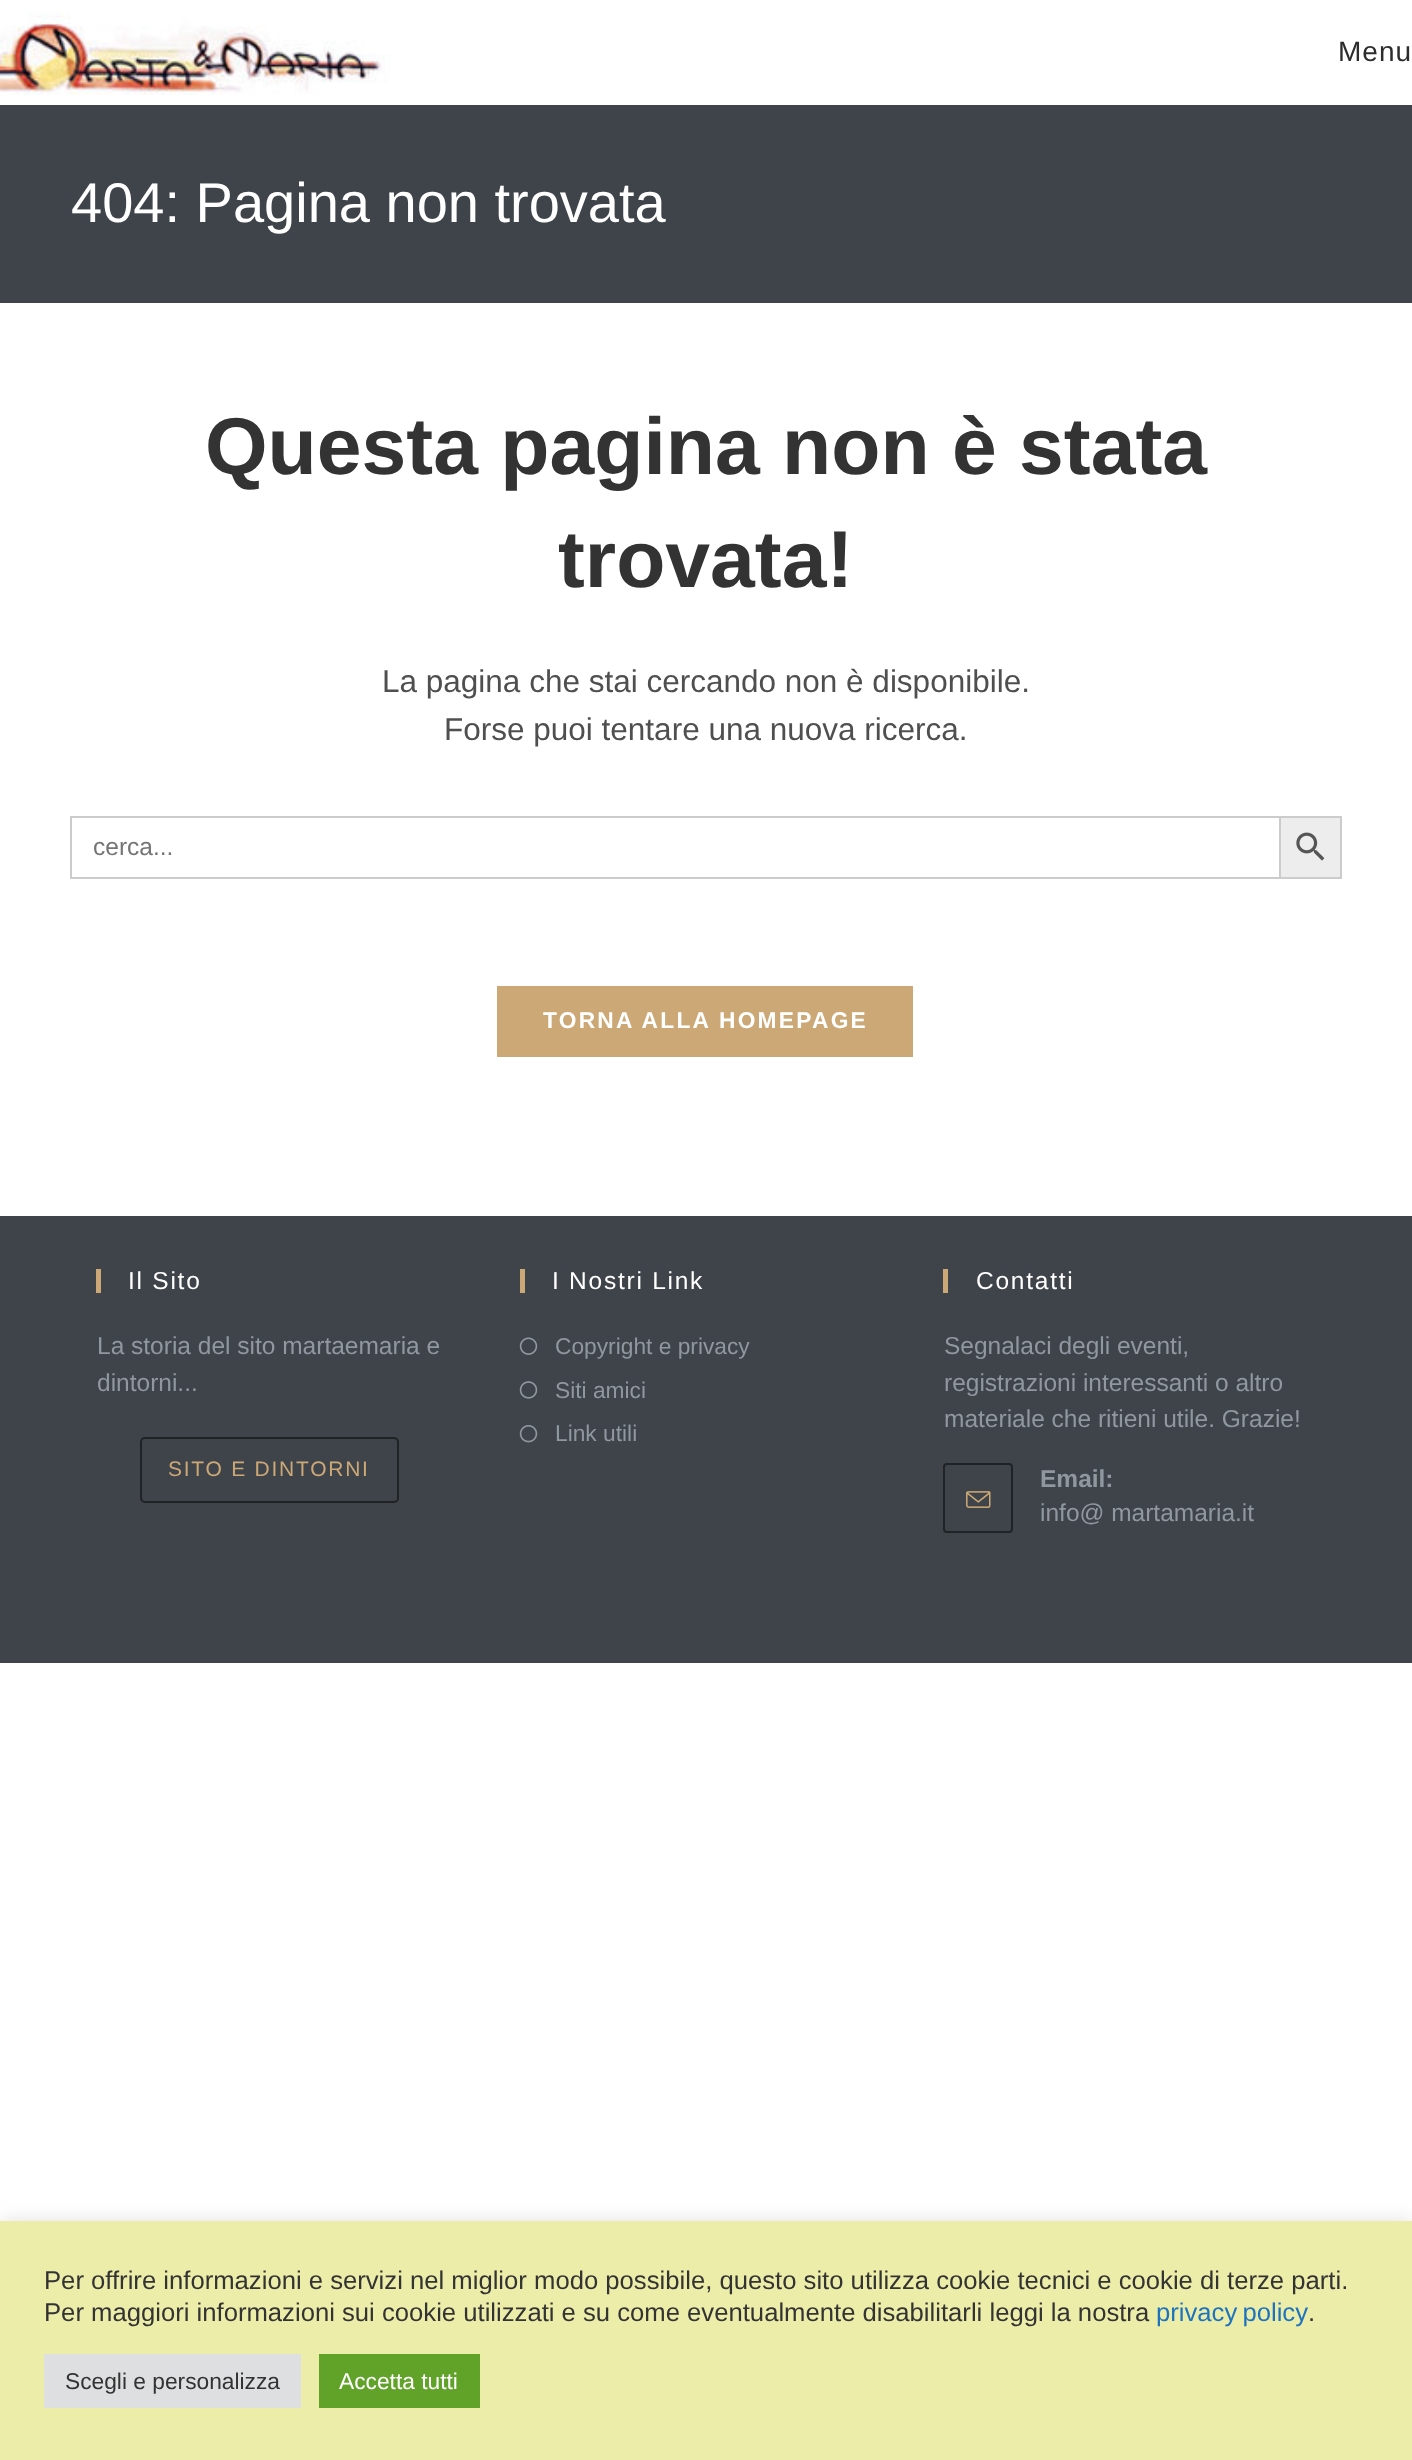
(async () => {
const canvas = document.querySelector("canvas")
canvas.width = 1412
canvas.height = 2460
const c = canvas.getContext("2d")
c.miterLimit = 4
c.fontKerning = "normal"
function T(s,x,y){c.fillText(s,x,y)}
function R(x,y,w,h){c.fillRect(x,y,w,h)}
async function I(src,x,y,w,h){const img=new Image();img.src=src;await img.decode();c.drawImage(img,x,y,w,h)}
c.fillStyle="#fff"
R(0,0,1412,2460)
await I("1.png",0,12,390,83)
c.letterSpacing="1px"
c.font="28px Liberation Sans"
c.fillStyle="#2c2c2c"
T("Menu",1338,61)
c.fillStyle="#3f444a"
R(0,105,1412,198)
c.letterSpacing="0px"
c.font="56px Liberation Sans"
c.fillStyle="#fff"
T("404: Pagina non trovata",71,222)
c.font="bold 80.5px Liberation Sans"
c.fillStyle="#333"
T("Questa pagina non è stata",205,474)
T("trovata!",558,587)
c.font="31.5px Liberation Sans"
c.fillStyle="#4f4f4f"
T("La pagina che stai cercando non è disponibile.",382,692)
T("Forse puoi tentare una nuova ricerca.",444,740)
c.fillStyle="#ccc"
R(70,816,1209,2)
R(70,877,1209,2)
R(70,816,2,63)
c.font="24.5px Liberation Sans"
c.fillStyle="#757575"
T("cerca...",93,855)
c.fillStyle="#ededed"
c.beginPath()
c.rect(1280,817,61,61)
c.fill()
c.strokeStyle="#ccc"
c.lineWidth=2
c.stroke()
await I("2.png",1296,832,29,29)
c.fillStyle="#cca876"
R(497,986,416,71)
c.letterSpacing="2.25px"
c.font="bold 22.75px Liberation Sans"
c.fillStyle="#fff"
T("TORNA ALLA HOMEPAGE",543,1028)
c.fillStyle="#3f444a"
R(0,1216,1412,447)
c.fillStyle="#cca876"
R(96,1269,5,24)
c.letterSpacing="1.75px"
c.font="24.5px Liberation Sans"
c.fillStyle="#fff"
T("Il Sito",128,1289)
c.letterSpacing="0px"
c.fillStyle="#90979f"
T("La storia del sito martaemaria e",97,1354)
T("dintorni...",97,1391)
c.beginPath()
c.roundRect(141,1438,257,64,4)
c.strokeStyle="#202326"
c.stroke()
c.letterSpacing="1.75px"
c.font="21px Liberation Sans"
c.fillStyle="#cca876"
T("SITO E DINTORNI",168,1476)
R(520,1269,5,24)
c.font="24.5px Liberation Sans"
c.fillStyle="#fff"
T("I Nostri Link",552,1289)
await I("3.png",519,1337,19,18)
c.letterSpacing="0px"
c.font="22.75px Liberation Sans"
c.fillStyle="#90979f"
T("Copyright e privacy",555,1354)
await I("4.png",519,1381,19,18)
T("Siti amici",555,1398)
await I("5.png",519,1425,19,18)
T("Link utili",555,1441)
c.fillStyle="#cca876"
R(943,1269,5,24)
c.letterSpacing="1.75px"
c.font="24.5px Liberation Sans"
c.fillStyle="#fff"
T("Contatti",976,1289)
c.letterSpacing="0px"
c.fillStyle="#90979f"
T("Segnalaci degli eventi,",944,1354)
T("registrazioni interessanti o altro",944,1391)
T("materiale che ritieni utile. Grazie!",944,1427)
c.beginPath()
c.roundRect(944,1464,68,68,3)
c.stroke()
await I("6.png",966,1491,25,17)
c.font="bold 24.5px Liberation Sans"
T("Email:",1040,1487)
c.font="24.5px Liberation Sans"
T("info@ martamaria.it",1040,1521)
c.fillStyle="#acabab4d"
c.filter="blur(9px)"
c.beginPath()
c.rect(0,2219,1412,240)
c.fill()
c.filter="none"
c.fillStyle="#ededaa"
R(0,2221,1412,239)
c.font="25.67px Liberation Sans"
c.fillStyle="#333"
T("Per offrire informazioni e servizi nel miglior modo possibile, questo sito utilizza cookie tecnici e cookie di terze parti.",44,2289)
T("Per maggiori informazioni sui cookie utilizzati e su come eventualmente disabilitarli leggi la nostra",44,2321)
c.wordSpacing="-2px"
c.fillStyle="#1e73be"
T("privacy policy",1156,2321)
c.wordSpacing="0px"
c.fillStyle="#333"
T(".",1308,2321)
c.fillStyle="#dedfe0"
R(44,2354,257,54)
c.font="22.75px Liberation Sans"
c.fillStyle="#333"
T("Scegli e personalizza",65,2389)
c.fillStyle="#61a229"
R(319,2354,161,54)
c.fillStyle="#fff"
T("Accetta tutti",339,2389)
})()
